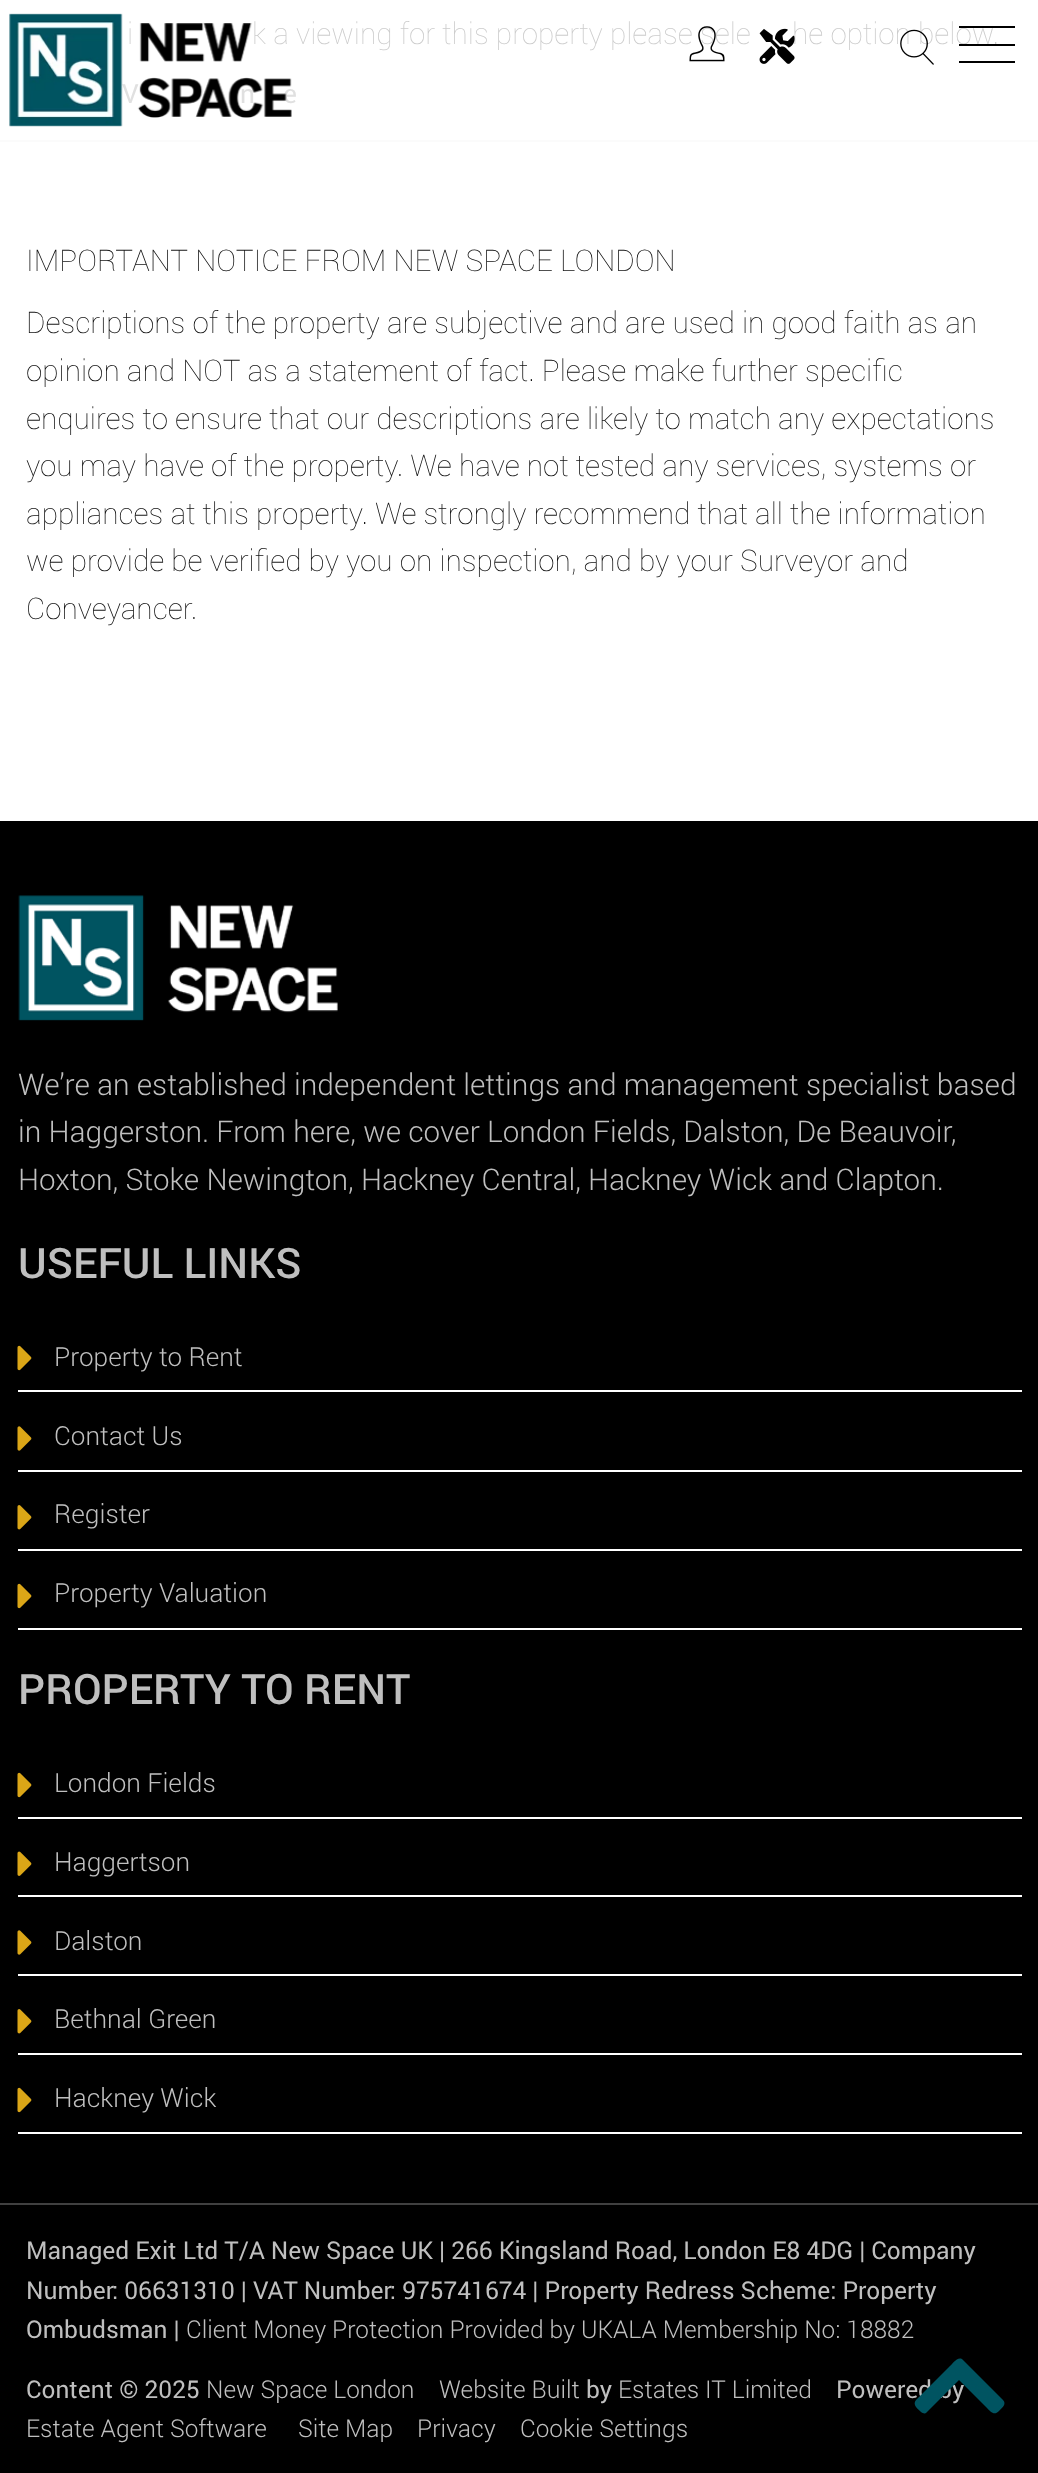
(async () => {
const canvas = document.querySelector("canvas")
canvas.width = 1038
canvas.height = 2473
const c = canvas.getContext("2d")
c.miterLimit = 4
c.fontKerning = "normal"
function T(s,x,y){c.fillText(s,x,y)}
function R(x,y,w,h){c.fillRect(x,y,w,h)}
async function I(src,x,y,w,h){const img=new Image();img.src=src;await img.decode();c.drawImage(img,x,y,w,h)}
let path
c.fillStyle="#fff"
R(0,0,1038,2473)
c.fillStyle="#fbfbfb"
R(0,140,1038,2)
c.font="100 29.75px Roboto"
c.fillStyle="#ccc"
T("i",127,44)
T("k a viewing for this property please sele",252,44)
c.font="26.25px Roboto"
c.fillStyle="#e0e0e0"
T("V",122,103)
T("n",240,103)
T("e",283,103)
await I("1.png",9,13,283,114)
await I("2.png",689,26,36,36)
c.font="100 29.75px Roboto"
c.fillStyle="#ccc"
T("he option below.",792,44)
await I("3.png",759,28,36,36)
await I("4.png",900,29,34,36)
c.fillStyle="#000"
R(959,26,56,2)
R(959,44,56,2)
R(959,61,56,2)
c.fillStyle="#111"
T("IMPORTANT NOTICE FROM NEW SPACE LONDON",26,271)
T("Descriptions of the property are subjective and are used in good faith as an",26,333)
T("opinion and NOT as a statement of fact. Please make further specific",26,381)
T("enquires to ensure that our descriptions are likely to match any expectations",26,429)
T("you may have of the property. We have not tested any services, systems or",26,476)
T("appliances at this property. We strongly recommend that all the information",26,524)
T("we provide be verified by you on inspection, and by your Surveyor and",26,571)
T("Conveyancer.",26,619)
c.fillStyle="#000"
R(0,821,1038,1652)
await I("5.png",18,895,320,126)
c.font="300 29.75px Roboto"
c.fillStyle="#bfbfbf"
T("We’re an established independent lettings and management specialist based",18,1095)
T("in Haggerston. From here, we cover London Fields, Dalston, De Beauvoir,",18,1142)
T("Hoxton, Stoke Newington, Hackney Central, Hackney Wick and Clapton.",18,1190)
c.font="500 42px Roboto"
T("USEFUL LINKS",18,1278)
c.fillStyle="#fff"
R(18,1390,1004,2)
await I("6.png",17,1345,15,26)
c.font="300 26.25px Roboto"
c.fillStyle="#bfbfbf"
T("Property to Rent",54,1366)
c.fillStyle="#fff"
R(18,1470,1004,2)
await I("7.png",17,1426,15,25)
c.fillStyle="#bfbfbf"
T("Contact Us",54,1445)
c.fillStyle="#fff"
R(18,1549,1004,2)
await I("8.png",17,1505,15,25)
c.fillStyle="#bfbfbf"
T("Register",54,1523)
c.fillStyle="#fff"
R(18,1628,1004,2)
await I("6.png",17,1583,15,26)
c.fillStyle="#bfbfbf"
T("Property Valuation",54,1602)
c.font="500 42px Roboto"
T("PROPERTY TO RENT",18,1704)
c.fillStyle="#fff"
R(18,1817,1004,2)
await I("6.png",17,1772,15,26)
c.font="300 26.25px Roboto"
c.fillStyle="#bfbfbf"
T("London Fields",54,1792)
c.fillStyle="#fff"
R(18,1895,1004,2)
await I("9.png",17,1851,15,25)
c.fillStyle="#bfbfbf"
T("Haggertson",54,1871)
c.fillStyle="#fff"
R(18,1974,1004,2)
await I("7.png",17,1930,15,25)
c.fillStyle="#bfbfbf"
T("Dalston",54,1950)
c.fillStyle="#fff"
R(18,2053,1004,2)
await I("8.png",17,2009,15,25)
c.fillStyle="#bfbfbf"
T("Bethnal Green",54,2028)
c.fillStyle="#fff"
R(18,2132,1004,2)
await I("6.png",17,2087,15,26)
c.fillStyle="#bfbfbf"
T("Hackney Wick",54,2107)
c.fillStyle="#404040"
R(0,2203,1038,2)
c.font="24.5px Roboto"
c.fillStyle="#bfbfbf"
T("Managed Exit Ltd T/A New Space UK | 266 Kingsland Road, London E8 4DG | Company",26,2259)
T("Number: 06631310 | VAT Number: 975741674 | Property Redress Scheme: Property",26,2299)
T("Ombudsman |",26,2338)
c.font="300 24.5px Roboto"
T("Client Money Protection Provided by UKALA Membership No: 18882",186,2338)
c.font="24.5px Roboto"
T("Content © 2025",26,2398)
c.font="300 24.5px Roboto"
T("New Space London",206,2398)
T("Website Built",439,2398)
c.font="24.5px Roboto"
T("by",586,2398)
c.font="300 24.5px Roboto"
T("Estates IT Limited",618,2398)
c.font="24.5px Roboto"
T("Powered by",836,2398)
c.font="300 24.5px Roboto"
T("Estate Agent Software",26,2437)
T("Site Map",298,2437)
T("Privacy",417,2437)
T("Cookie Settings",520,2437)
c.fillStyle="#005461"
path = new Path2D("M963 2360l40 40c4 4-1 8-4 11c-5 5-8 1-13-4l-27-27l-33 33c-1 1-4 0-5-1c-3-3-9-7-5-12l33-33c3-2 9-12 14-7z")
c.fill(path)
})()
